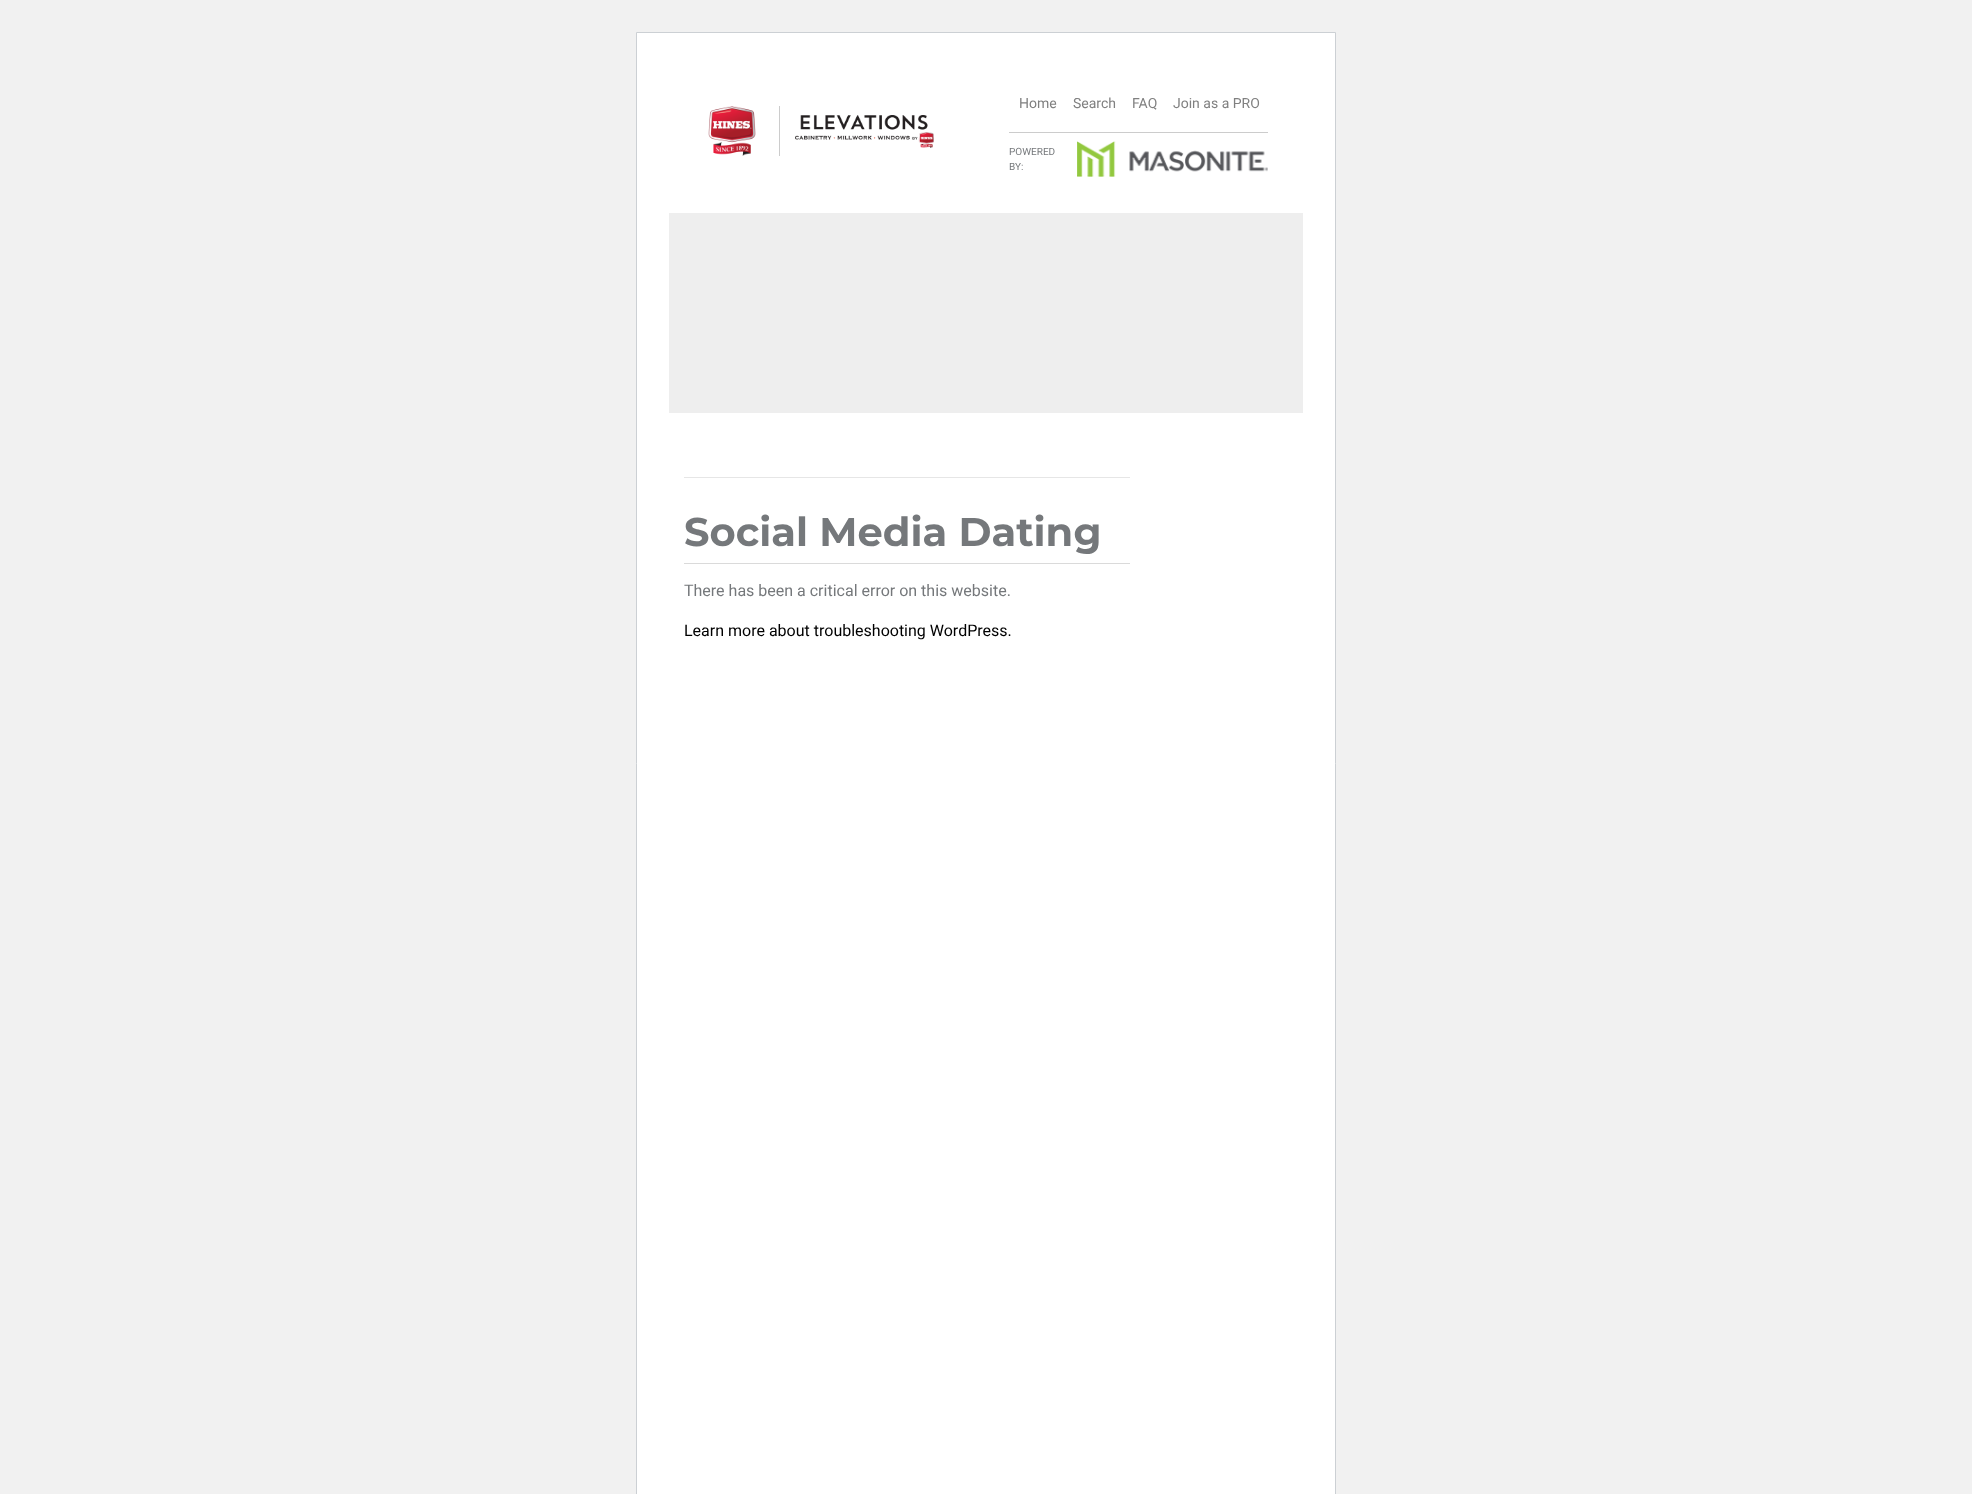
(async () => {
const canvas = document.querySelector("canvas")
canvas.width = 1972
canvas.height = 1494
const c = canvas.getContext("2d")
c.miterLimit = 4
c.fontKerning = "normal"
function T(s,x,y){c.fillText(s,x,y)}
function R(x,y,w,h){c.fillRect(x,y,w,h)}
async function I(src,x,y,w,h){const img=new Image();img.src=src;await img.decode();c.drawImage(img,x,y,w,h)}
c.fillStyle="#f1f1f1"
R(0,0,1972,1494)
c.fillStyle="#fff"
c.beginPath()
c.rect(636.5,32.5,699,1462)
c.fill()
c.strokeStyle="#ccd0d4"
c.stroke()
await I("1.png",708,106,48,50)
c.fillStyle="#ccc"
R(779,106,1,50)
await I("2.png",795,115,139,33)
c.font="14px Roboto"
c.fillStyle="#808080"
T("Home",1019,108)
T("Search",1073,108)
T("FAQ",1132,108)
T("Join as a PRO",1173,108)
c.fillStyle="#ccc"
R(1009,132,259,1)
c.font="10px Roboto"
c.fillStyle="#75787b"
T("POWERED",1009,155)
T("BY:",1009,170)
await I("3.png",1077,141,191,36)
c.fillStyle="#eee"
R(669,213,634,200)
c.fillStyle="#e6e6e6"
R(684,477,446,1)
c.fillStyle="#dadada"
R(684,563,446,1)
c.font="bold 40px Montserrat"
c.fillStyle="#75787b"
T("Social Media Dating",684,546)
c.font="16px Roboto"
T("There has been a critical error on this website.",684,596)
c.fillStyle="#000"
T("Learn more about troubleshooting WordPress.",684,636)
})()
